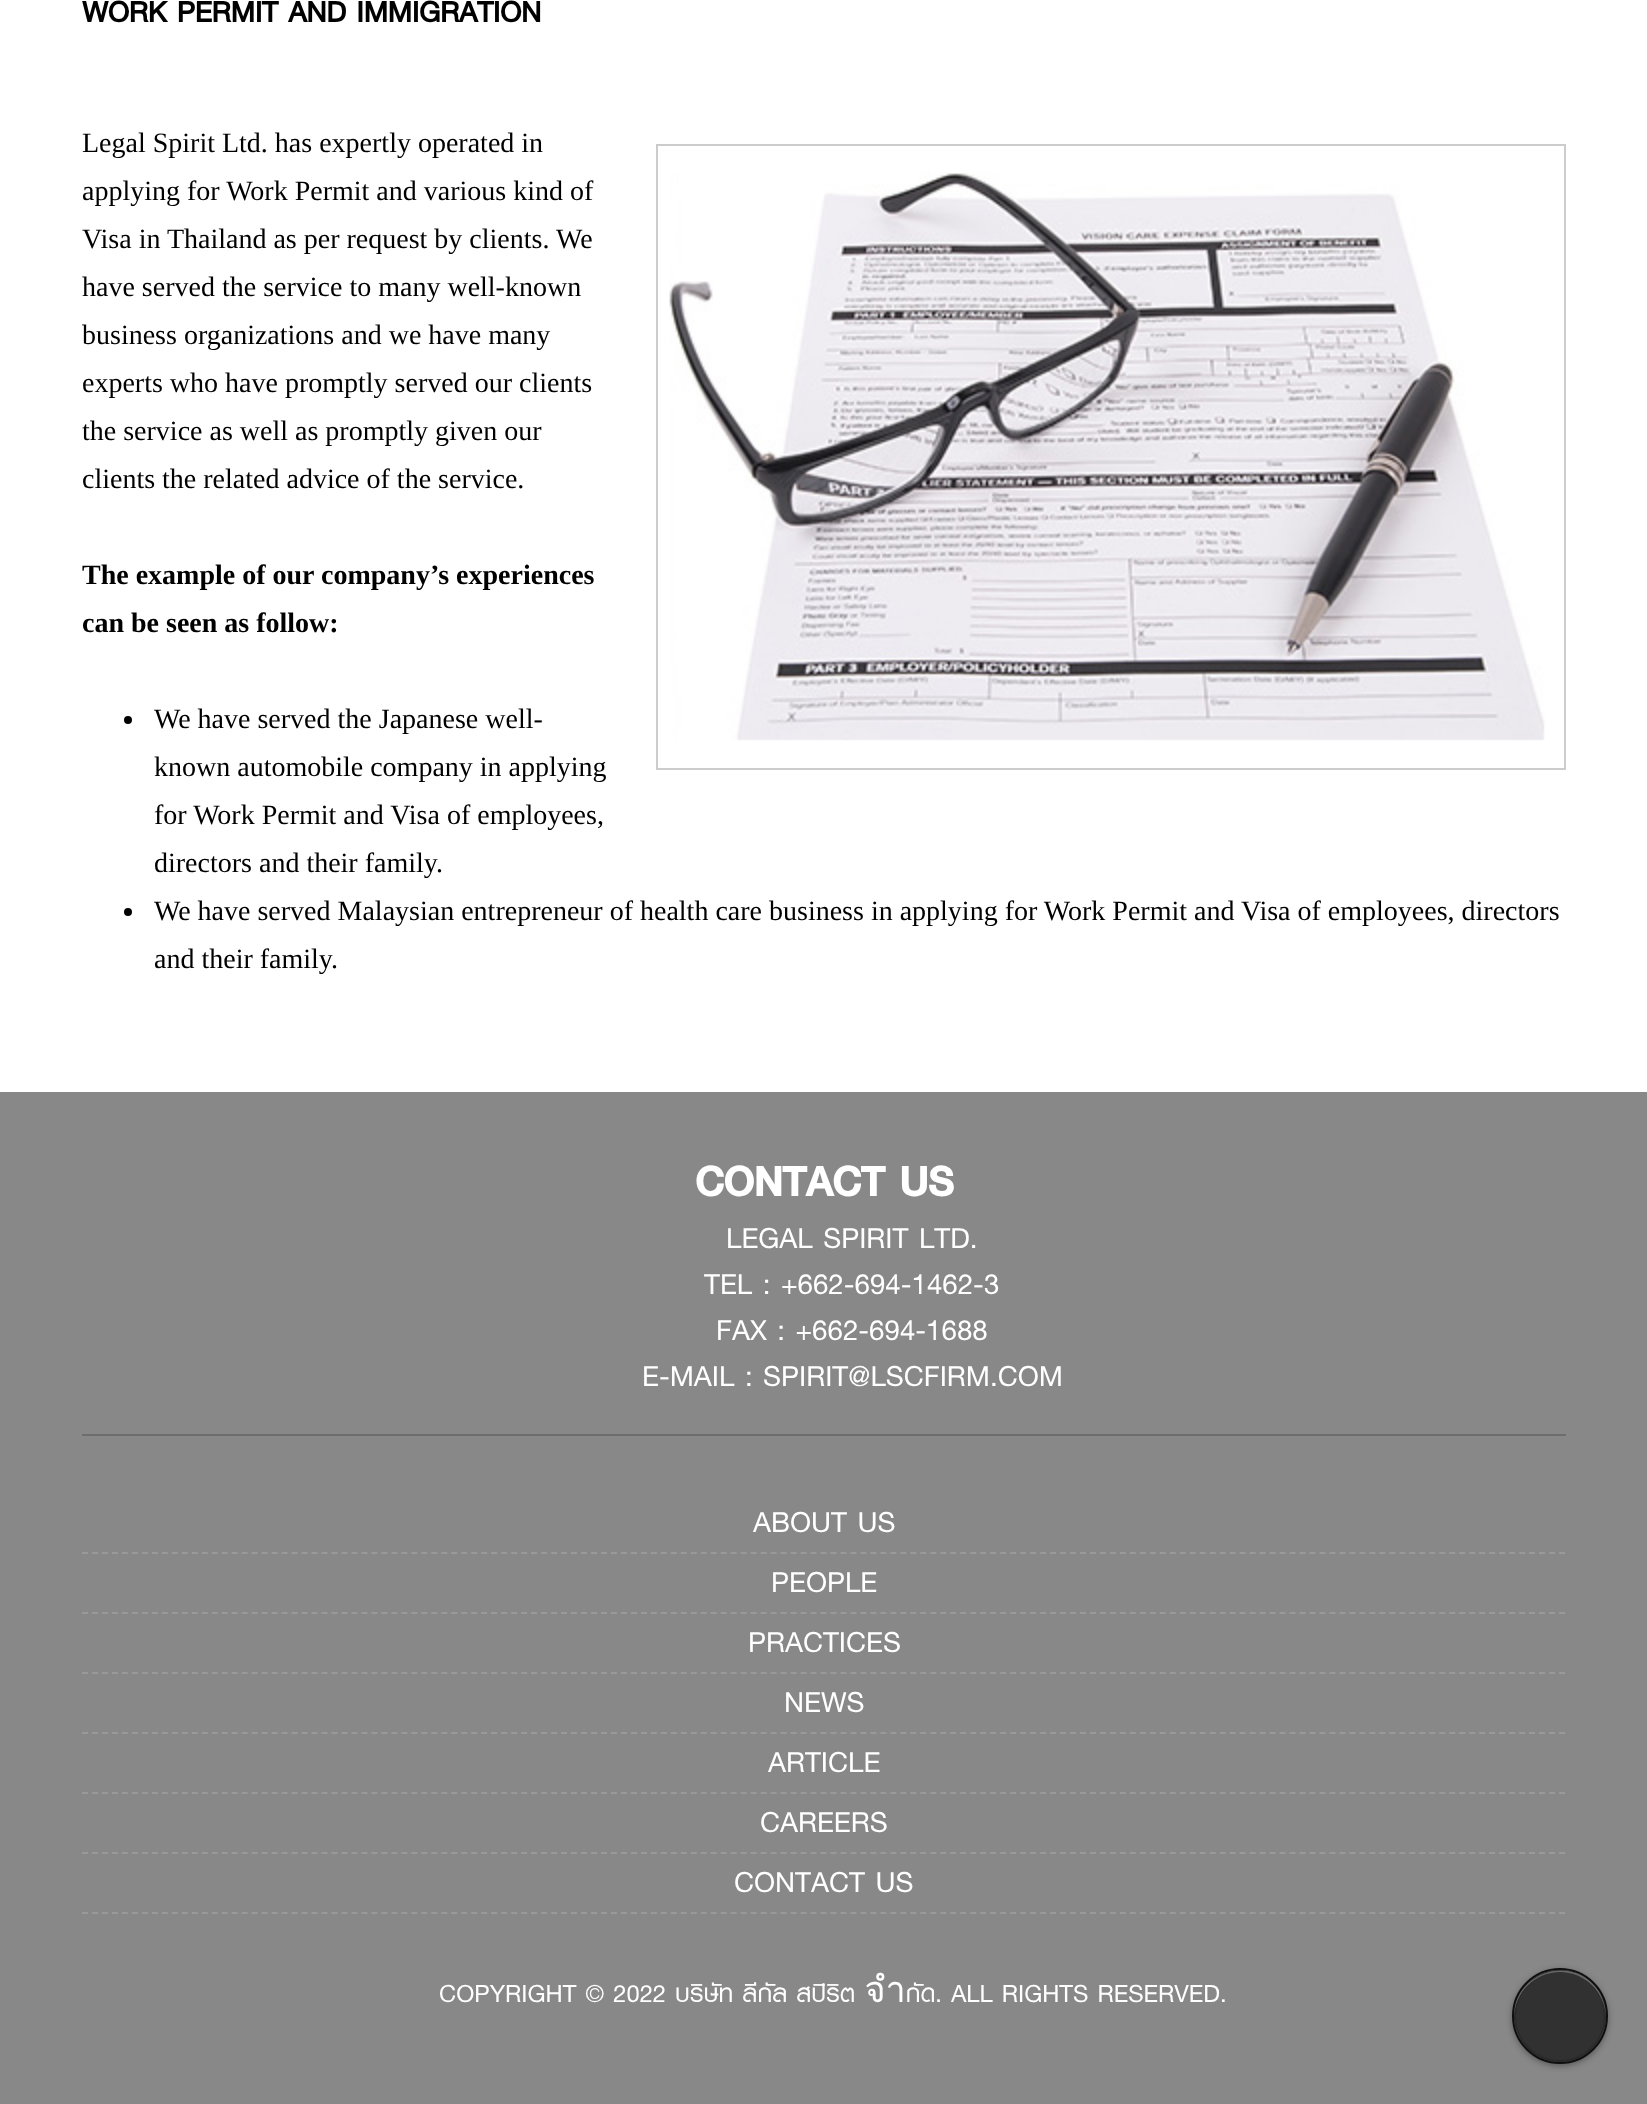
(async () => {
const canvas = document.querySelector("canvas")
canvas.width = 1647
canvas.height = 2104
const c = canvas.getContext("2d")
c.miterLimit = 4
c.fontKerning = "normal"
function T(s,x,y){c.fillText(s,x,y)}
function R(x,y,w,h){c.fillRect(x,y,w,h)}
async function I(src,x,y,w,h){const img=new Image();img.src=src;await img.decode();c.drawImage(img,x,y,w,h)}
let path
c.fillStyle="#fff"
R(0,0,1647,2104)
c.font="bold 42px 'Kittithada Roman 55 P'"
c.fillStyle="#000"
T("WORK PERMIT AND IMMIGRATION",82,22)
c.font="28px Liberation Serif"
T("Legal Spirit Ltd. has expertly operated in",82,152)
c.strokeStyle="#ccc"
c.lineWidth=2
c.strokeRect(657,145,908,624)
await I("1.png",669,173,876,568)
T("applying for Work Permit and various kind of",82,200)
T("Visa in Thailand as per request by clients. We",82,248)
T("have served the service to many well-known",82,296)
T("business organizations and we have many",82,344)
T("experts who have promptly served our clients",82,392)
T("the service as well as promptly given our",82,440)
T("clients the related advice of the service.",82,488)
c.font="bold 28px Liberation Serif"
T("The example of our company’s experiences",82,584)
T("can be seen as follow:",82,632)
c.beginPath()
c.arc(128,720,4,0,7)
c.fill()
c.font="28px Liberation Serif"
T("We have served the Japanese well-",154,728)
T("known automobile company in applying",154,776)
T("for Work Permit and Visa of employees,",154,824)
T("directors and their family.",154,872)
c.beginPath()
c.arc(128,912,4,0,7)
c.fill()
T("We have served Malaysian entrepreneur of health care business in applying for Work Permit and Visa of employees, directors",154,920)
T("and their family.",154,968)
c.fillStyle="#888"
R(0,1092,1647,1012)
c.font="bold 60px 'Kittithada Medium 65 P'"
c.fillStyle="#fff"
T("CONTACT US",695,1196)
c.font="42px 'Kittithada Roman 55 P'"
T("LEGAL SPIRIT LTD.",726,1248)
T("TEL : +662-694-1462-3",704,1294)
T("FAX : +662-694-1688",716,1340)
T("E-MAIL : SPIRIT@LSCFIRM.COM",642,1386)
c.fillStyle="#6d6d6d"
R(82,1434,1484,2)
path = new Path2D("M82 1553h1484")
c.strokeStyle="#999"
c.setLineDash([6,3.98])
c.stroke(path)
c.fillStyle="#fff"
T("ABOUT US",753,1532)
path = new Path2D("M82 1613h1484")
c.stroke(path)
T("PEOPLE",771,1592)
path = new Path2D("M82 1673h1484")
c.stroke(path)
T("PRACTICES",748,1652)
path = new Path2D("M82 1733h1484")
c.stroke(path)
T("NEWS",784,1712)
path = new Path2D("M82 1793h1484")
c.stroke(path)
T("ARTICLE",768,1772)
path = new Path2D("M82 1853h1484")
c.stroke(path)
T("CAREERS",760,1832)
path = new Path2D("M82 1913h1484")
c.stroke(path)
T("CONTACT US",734,1892)
c.font="36px 'Kittithada Roman 55 P'"
T("COPYRIGHT © 2022 บริษัท ลีกัล สปิริต จำกัด. ALL RIGHTS RESERVED.",439,2002)
c.fillStyle="#0f0f0f66"
c.filter="blur(3px)"
c.beginPath()
c.roundRect(1512,1970,96,96,48)
c.fill()
c.filter="none"
c.fillStyle="#313131"
c.beginPath()
c.arc(1560,2016,46,0,7)
c.fill()
c.fillStyle="#f2f2f266"
path = new Path2D("M1560 1972c25 0 45 20 46 45c0-9-3-19-8-27c-25-37-85-18-84 27c1-25 21-45 46-45z")
c.fill(path)
c.beginPath()
c.arc(1560,2016,45,0,7)
c.strokeStyle="#0f0f0f33"
c.setLineDash([])
c.stroke()
c.beginPath()
c.arc(1560,2016,47,0,7)
c.strokeStyle="#0f0f0f"
c.stroke()
})()
